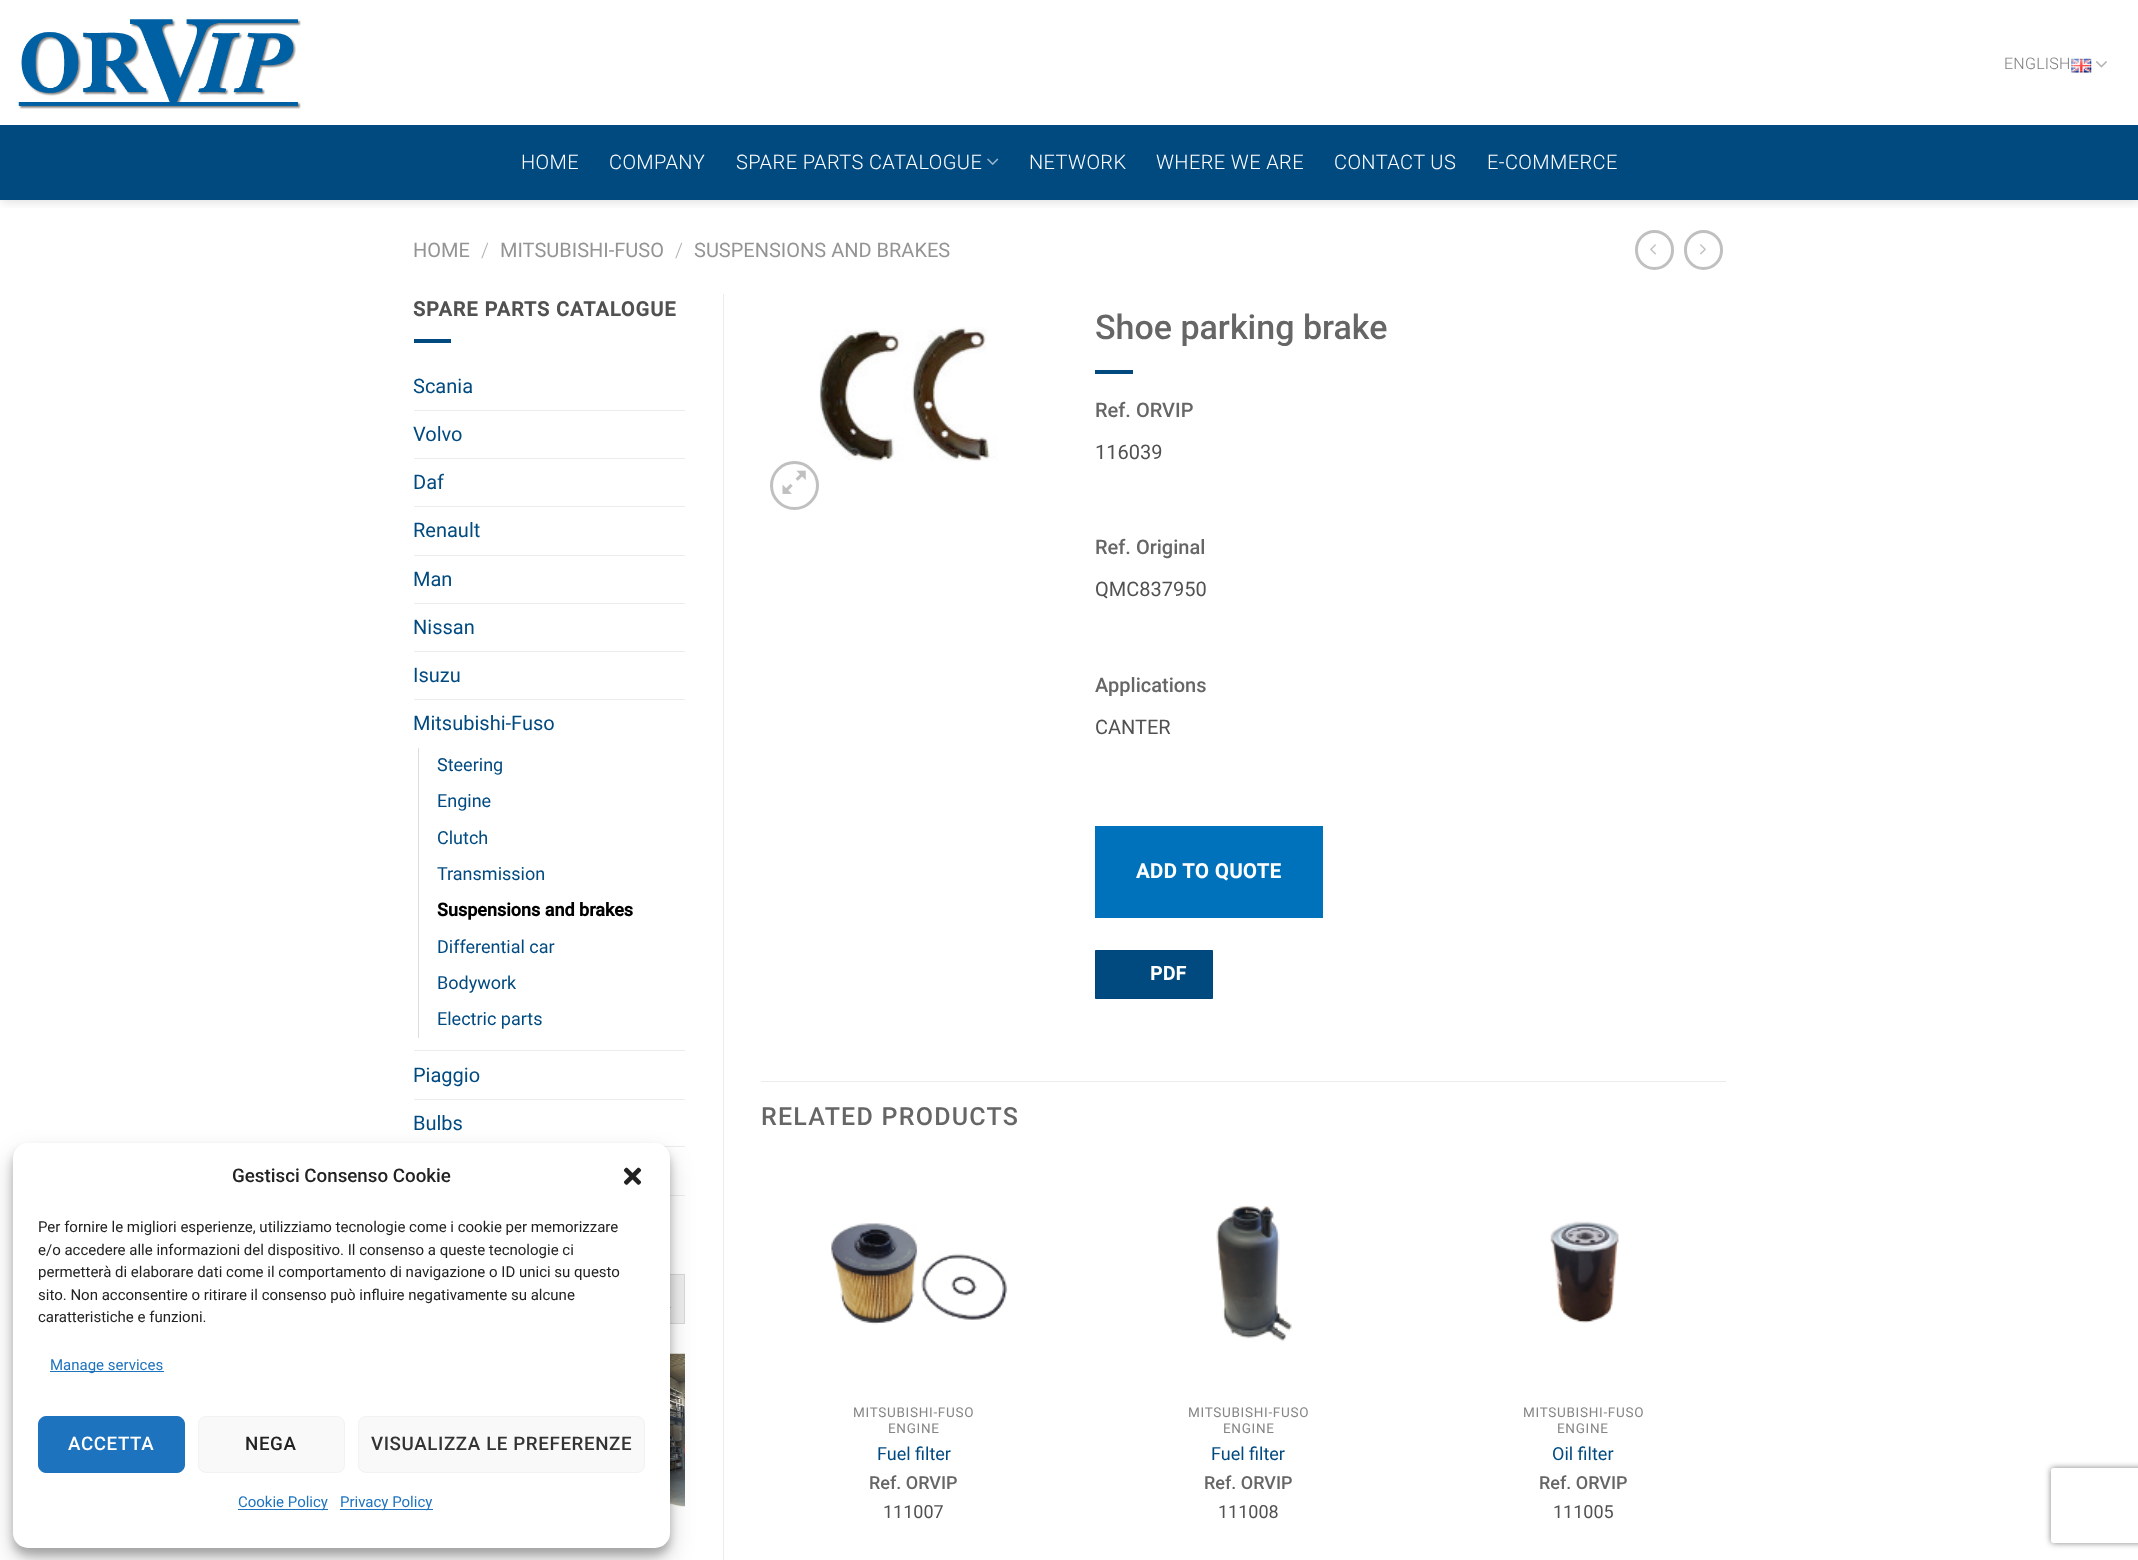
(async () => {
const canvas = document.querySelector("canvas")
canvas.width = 2138
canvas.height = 1560
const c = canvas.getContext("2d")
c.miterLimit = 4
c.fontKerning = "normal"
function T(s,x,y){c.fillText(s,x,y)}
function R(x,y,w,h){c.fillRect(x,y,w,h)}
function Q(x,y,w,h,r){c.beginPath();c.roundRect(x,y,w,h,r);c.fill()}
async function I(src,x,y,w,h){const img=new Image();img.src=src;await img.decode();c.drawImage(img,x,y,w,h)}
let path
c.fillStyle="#fff"
R(0,0,2138,1560)
c.fillStyle="#ececec"
R(664,1146,21,1)
R(670,1195,15,1)
c.fillStyle="#ededed"
R(670,1275,14,48)
c.strokeStyle="#d8d8d8"
c.strokeRect(633.5,1274.5,51,49)
await I("8.png",670,1307,1,1)
await I("9.png",670,1353,15,154)
c.fillStyle="#0000003b"
c.filter="blur(4px)"
c.beginPath()
c.roundRect(13,1150,657,405,15)
c.fill()
c.filter="none"
c.fillStyle="#00000030"
c.filter="blur(12.5px)"
c.beginPath()
c.roundRect(13,1155,657,405,15)
c.fill()
c.filter="none"
c.fillStyle="#fff"
Q(13,1143,657,405,15)
c.font="500 18.75px Roboto"
c.fillStyle="#222"
T("Gestisci Consenso Cookie",232,1182)
await I("1.png",623,1167,19,18)
c.font="15px Roboto"
T("Per fornire le migliori esperienze, utilizziamo tecnologie come i cookie per memorizzare",38,1232)
T("e/o accedere alle informazioni del dispositivo. Il consenso a queste tecnologie ci",38,1255)
T("permetterà di elaborare dati come il comportamento di navigazione o ID unici su questo",38,1277)
T("sito. Non acconsentire o ritirare il consenso può influire negativamente su alcune",38,1300)
T("caratteristiche e funzioni.",38,1322)
c.fillStyle="#1e73be"
R(50,1371,114,1)
T("Manage services",50,1370)
c.beginPath()
c.roundRect(38.5,1416.5,146,56,7.5)
c.fill()
c.strokeStyle="#1e73be"
c.stroke()
c.letterSpacing="0.6px"
c.font="500 18.75px Roboto"
c.fillStyle="#fff"
T("ACCETTA",68,1450)
c.fillStyle="#f9f9f9"
c.beginPath()
c.roundRect(198.5,1416.5,146,56,7.5)
c.fill()
c.strokeStyle="#f2f2f2"
c.stroke()
c.fillStyle="#222"
T("NEGA",245,1450)
c.fillStyle="#f9f9f9"
c.beginPath()
c.roundRect(358.5,1416.5,286,56,7.5)
c.fill()
c.stroke()
c.fillStyle="#333"
T("VISUALIZZA LE PREFERENZE",371,1450)
c.fillStyle="#1e73be"
R(238,1509,90,1)
c.letterSpacing="0px"
c.font="15px Roboto"
T("Cookie Policy",238,1507)
R(340,1509,93,1)
T("Privacy Policy",340,1507)
c.save()
c.beginPath()
c.rect(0,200,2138,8)
c.clip()
c.fillStyle="#00000026"
c.filter="blur(6px)"
c.beginPath()
c.rect(1,1,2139,200)
c.fill()
c.filter="none"
c.restore()
await I("2.png",18,19,283,90)
c.letterSpacing="0.25px"
c.font="300 16px Roboto"
c.fillStyle="#7d7d7d"
T("ENGLISH",2004,69)
await I("3.png",2071,58,21,15)
await I("4.png",2096,61,11,7)
c.fillStyle="#004a80"
R(0,125,2138,75)
c.letterSpacing="0.4px"
c.font="300 20px Roboto"
c.fillStyle="#fff"
T("HOME",521,169)
T("COMPANY",609,169)
T("SPARE PARTS CATALOGUE",736,169)
await I("5.png",987,158,12,7)
T("NETWORK",1029,169)
T("WHERE WE ARE",1156,169)
T("CONTACT US",1334,169)
T("E-COMMERCE",1487,169)
c.letterSpacing="0px"
c.font="20px Roboto"
c.fillStyle="#949494"
T("HOME",413,257)
c.font="300 20px Roboto"
c.fillStyle="#b2b2b2"
T("/",481,257)
c.font="20px Roboto"
c.fillStyle="#949494"
T("MITSUBISHI-FUSO",500,257)
c.font="300 20px Roboto"
c.fillStyle="#b2b2b2"
T("/",675,257)
c.font="20px Roboto"
c.fillStyle="#949494"
T("SUSPENSIONS AND BRAKES",694,257)
c.beginPath()
c.roundRect(1636.5,231.5,36,37,18)
c.strokeStyle="#c0c0c0"
c.lineWidth=3
c.stroke()
await I("6.png",1650,244,6,11)
c.beginPath()
c.roundRect(1685.5,231.5,36,37,18)
c.stroke()
await I("7.png",1700,244,6,11)
c.letterSpacing="1px"
c.font="bold 20px Roboto"
c.fillStyle="#515151"
T("SPARE PARTS CATALOGUE",413,316)
c.fillStyle="#004a80"
R(414,339,37,4)
c.letterSpacing="0px"
c.font="20px Roboto"
T("Scania",413,393)
c.fillStyle="#ececec"
R(414,410,271,1)
c.fillStyle="#004a80"
T("Volvo",413,441)
c.fillStyle="#ececec"
R(414,458,271,1)
c.fillStyle="#004a80"
T("Daf",413,489)
c.fillStyle="#ececec"
R(414,506,271,1)
c.fillStyle="#004a80"
T("Renault",413,537)
c.fillStyle="#ececec"
R(414,555,271,1)
c.fillStyle="#004a80"
T("Man",413,586)
c.fillStyle="#ececec"
R(414,603,271,1)
c.fillStyle="#004a80"
T("Nissan",413,634)
c.fillStyle="#ececec"
R(414,651,271,1)
c.fillStyle="#004a80"
T("Isuzu",413,682)
c.fillStyle="#ececec"
R(414,699,271,1)
c.fillStyle="#004a80"
T("Mitsubishi-Fuso",413,730)
c.fillStyle="#ddd"
R(418,748,1,290)
c.font="18px Roboto"
c.fillStyle="#004a80"
T("Steering",437,771)
T("Engine",437,807)
T("Clutch",437,844)
T("Transmission",437,880)
c.font="bold 18px Roboto"
c.fillStyle="#000"
T("Suspensions and brakes",437,916)
c.font="18px Roboto"
c.fillStyle="#004a80"
T("Differential car",437,953)
T("Bodywork",437,989)
T("Electric parts",437,1025)
c.fillStyle="#ececec"
R(414,1050,271,1)
c.font="20px Roboto"
c.fillStyle="#004a80"
T("Piaggio",413,1082)
c.fillStyle="#ececec"
R(414,1099,271,1)
c.fillStyle="#004a80"
T("Bulbs",413,1130)
c.fillStyle="#ececec"
R(723,294,1,1266)
await I("10.png",819,327,179,135)
c.beginPath()
c.arc(794.5,485.5,23,0,7)
c.stroke()
await I("11.png",782,470,24,24)
c.font="500 34px Roboto"
c.fillStyle="#666"
T("Shoe parking brake",1095,339)
c.fillStyle="#004a80"
R(1095,370,38,4)
c.font="500 20px Roboto"
c.fillStyle="#666"
T("Ref. ORVIP",1095,417)
c.font="20px Roboto"
c.fillStyle="#515151"
T("116039",1095,459)
c.font="500 20px Roboto"
c.fillStyle="#666"
T("Ref. Original",1095,554)
c.font="20px Roboto"
c.fillStyle="#515151"
T("QMC837950",1095,596)
c.font="500 20px Roboto"
c.fillStyle="#666"
T("Applications",1095,692)
c.font="20px Roboto"
c.fillStyle="#515151"
T("CANTER",1095,734)
c.fillStyle="#0072bc"
R(1095,826,228,92)
c.letterSpacing="0.6px"
c.font="bold 20px Roboto"
c.fillStyle="#fff"
T("ADD TO QUOTE",1136,878)
c.fillStyle="#004a80"
c.beginPath()
c.rect(1095.5,950.5,117,48)
c.fill()
c.strokeStyle="#00467a"
c.lineWidth=1
c.stroke()
c.letterSpacing="0.5px"
c.font="bold 19px Roboto"
c.fillStyle="#fff"
T("PDF",1150,980)
c.fillStyle="#ececec"
R(761,1081,965,1)
c.letterSpacing="1.25px"
c.font="500 25px Roboto"
c.fillStyle="#666"
T("RELATED PRODUCTS",761,1125)
await I("12.png",831,1223,177,102)
c.letterSpacing="0.7px"
c.font="13.5px Roboto"
c.fillStyle="#858585"
T("MITSUBISHI-FUSO",853,1417)
T("ENGINE",888,1433)
c.letterSpacing="0px"
c.font="18px Roboto"
c.fillStyle="#004a80"
T("Fuel filter",877,1460)
c.font="500 18px Roboto"
c.fillStyle="#666"
T("Ref. ORVIP",869,1489)
c.font="18px Roboto"
c.fillStyle="#515151"
T("111007",883,1518)
await I("13.png",1216,1205,76,137)
c.letterSpacing="0.7px"
c.font="13.5px Roboto"
c.fillStyle="#858585"
T("MITSUBISHI-FUSO",1188,1417)
T("ENGINE",1223,1433)
c.letterSpacing="0px"
c.font="18px Roboto"
c.fillStyle="#004a80"
T("Fuel filter",1211,1460)
c.font="500 18px Roboto"
c.fillStyle="#666"
T("Ref. ORVIP",1204,1489)
c.font="18px Roboto"
c.fillStyle="#515151"
T("111008",1218,1518)
await I("14.png",1550,1221,69,102)
c.letterSpacing="0.7px"
c.font="13.5px Roboto"
c.fillStyle="#858585"
T("MITSUBISHI-FUSO",1523,1417)
T("ENGINE",1557,1433)
c.letterSpacing="0px"
c.font="18px Roboto"
c.fillStyle="#004a80"
T("Oil filter",1552,1460)
c.font="500 18px Roboto"
c.fillStyle="#666"
T("Ref. ORVIP",1539,1489)
c.font="18px Roboto"
c.fillStyle="#515151"
T("111005",1553,1518)
c.save()
path = new Path2D("M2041 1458h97v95h-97zm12.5 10h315c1.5 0 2.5 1 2.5 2.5v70c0 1.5-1 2.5-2.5 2.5h-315c-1.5 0-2.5-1-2.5-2.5v-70c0-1.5 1-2.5 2.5-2.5z")
c.clip(path,"evenodd")
c.fillStyle="#808080"
c.filter="blur(3px)"
c.beginPath()
c.roundRect(2051,1468,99,75,2.5)
c.fill()
c.filter="none"
c.restore()
})()
